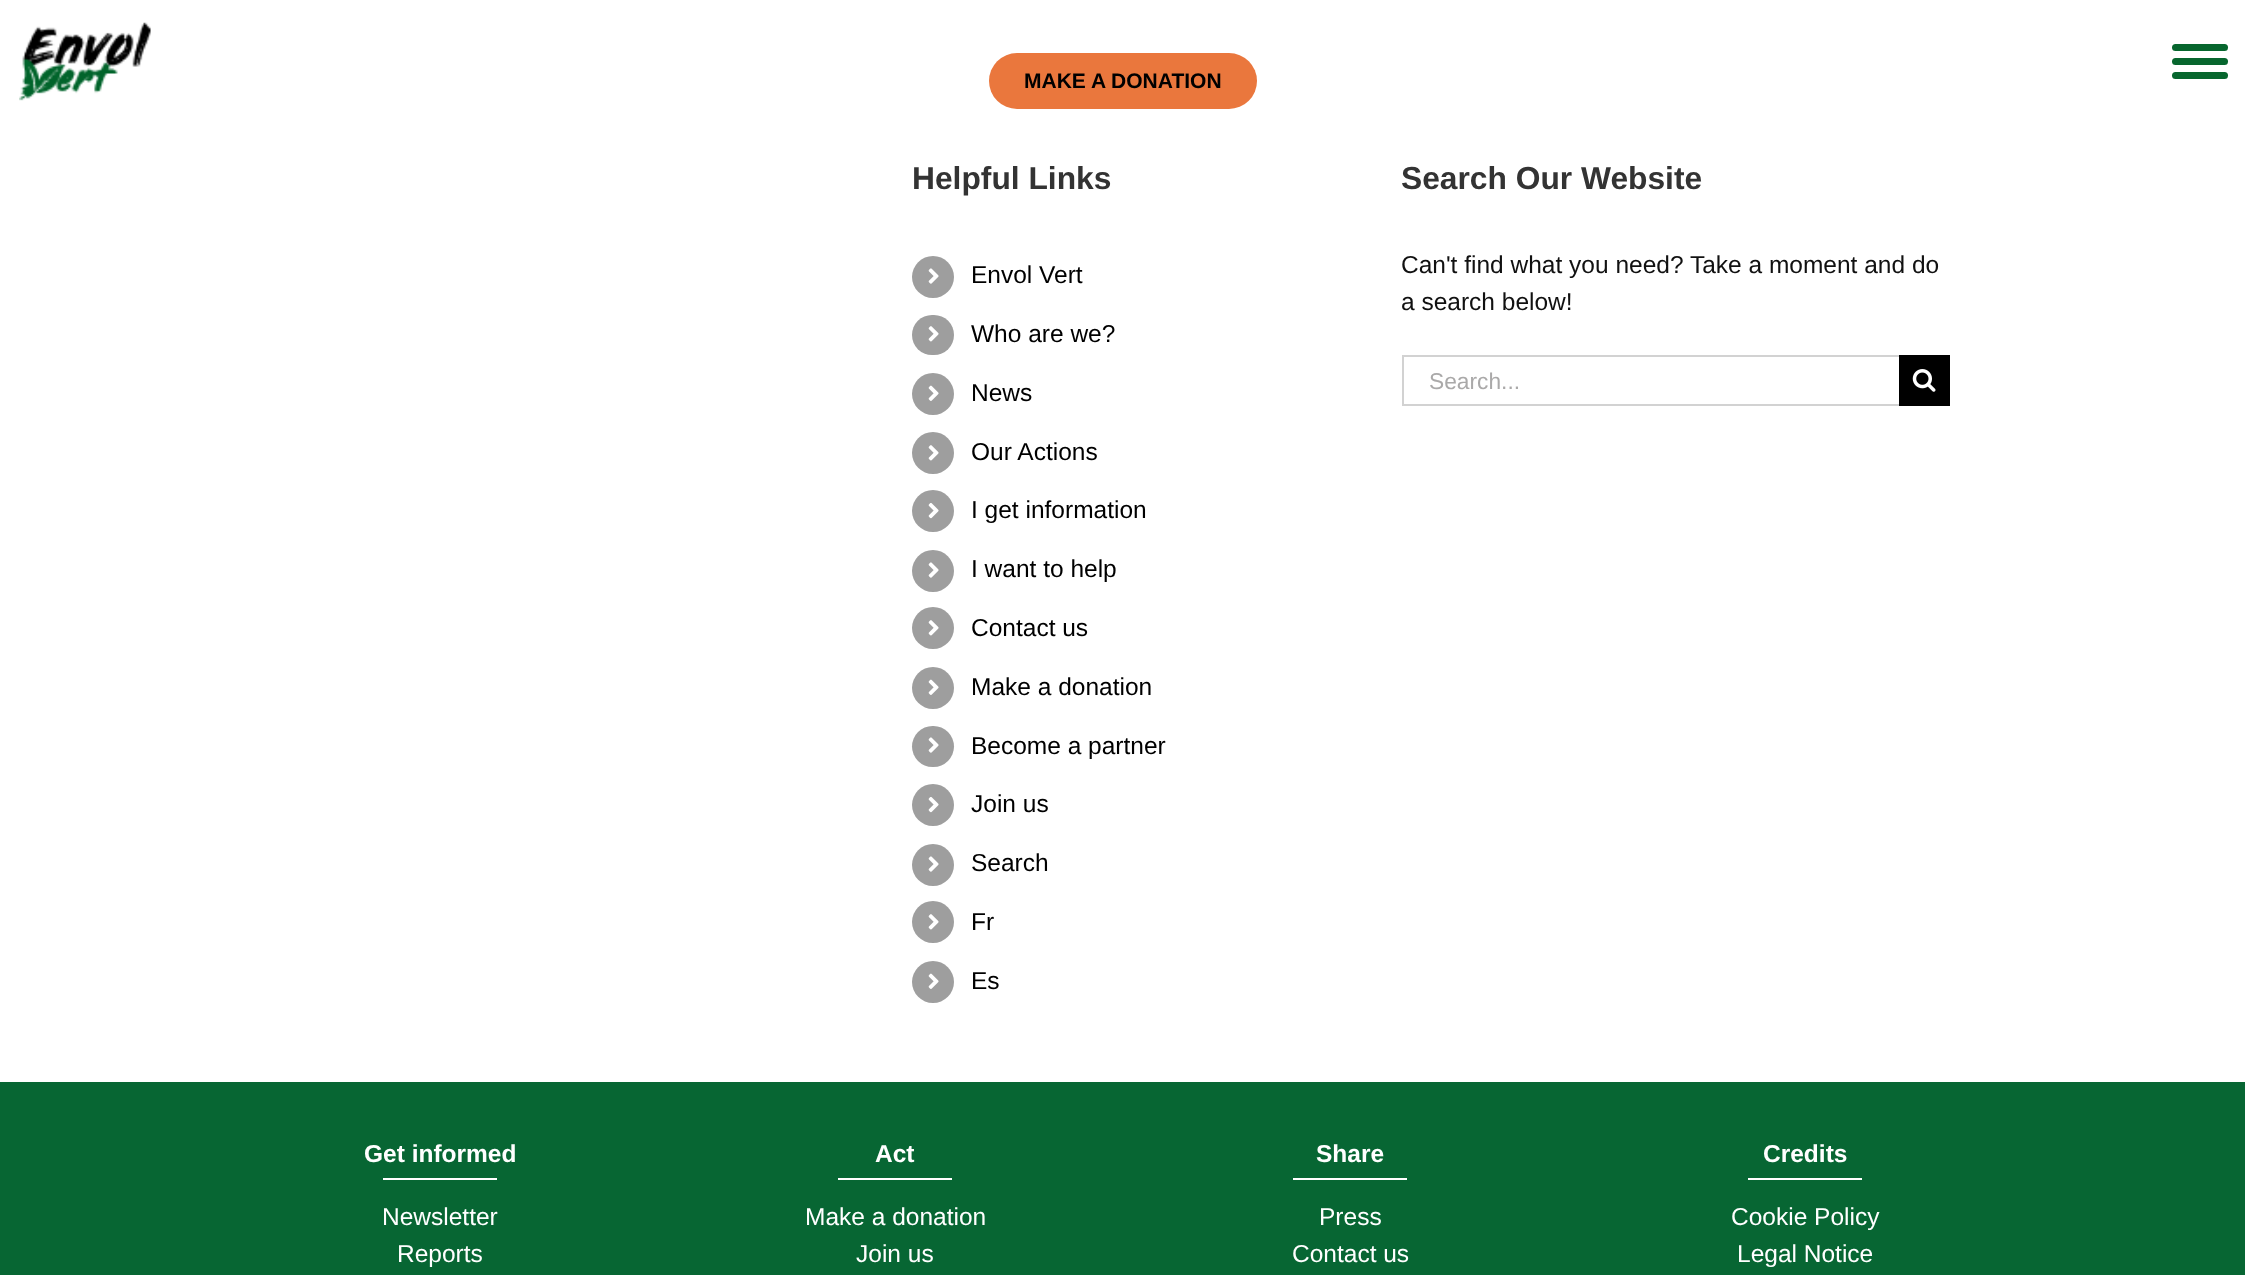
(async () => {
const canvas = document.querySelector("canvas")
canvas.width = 2245
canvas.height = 1275
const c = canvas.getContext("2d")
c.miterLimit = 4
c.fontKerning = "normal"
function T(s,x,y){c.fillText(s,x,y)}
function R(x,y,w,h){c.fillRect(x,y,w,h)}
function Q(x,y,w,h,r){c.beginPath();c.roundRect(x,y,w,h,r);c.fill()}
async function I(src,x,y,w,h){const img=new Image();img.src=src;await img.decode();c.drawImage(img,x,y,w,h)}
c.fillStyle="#fff"
R(0,0,2245,1275)
await I("1.png",19,22,132,79)
c.fillStyle="#07662e"
Q(2172,44,56,7,3.5)
Q(2172,58,56,7,3.5)
Q(2172,72,56,7,3.5)
c.fillStyle="#ea773d"
Q(989,53,268,56,28)
c.font="bold 21px Liberation Sans"
c.fillStyle="#000"
T("MAKE A DONATION",1024,88)
c.font="bold 31.75px Liberation Sans"
c.fillStyle="#333"
T("Helpful Links",912,189)
c.fillStyle="#9e9e9e"
c.beginPath()
c.arc(933,277,21,0,7)
c.fill()
await I("2.png",928,268,11,16)
c.font="24.5px Liberation Sans"
c.fillStyle="#000"
T("Envol Vert",971,283)
c.fillStyle="#9e9e9e"
Q(912,315,42,40,20)
await I("3.png",928,326,11,16)
c.fillStyle="#000"
T("Who are we?",971,342)
c.fillStyle="#9e9e9e"
c.beginPath()
c.arc(933,394,21,0,7)
c.fill()
await I("4.png",928,385,11,16)
c.fillStyle="#000"
T("News",971,401)
c.fillStyle="#9e9e9e"
c.beginPath()
c.arc(933,453,21,0,7)
c.fill()
await I("3.png",928,445,11,16)
c.fillStyle="#000"
T("Our Actions",971,460)
c.fillStyle="#9e9e9e"
c.beginPath()
c.arc(933,511,21,0,7)
c.fill()
await I("5.png",928,503,11,16)
c.fillStyle="#000"
T("I get information",971,518)
c.fillStyle="#9e9e9e"
c.beginPath()
c.arc(933,571,21,0,7)
c.fill()
await I("2.png",928,562,11,16)
c.fillStyle="#000"
T("I want to help",971,577)
c.fillStyle="#9e9e9e"
c.beginPath()
c.arc(933,628,21,0,7)
c.fill()
await I("3.png",928,620,11,16)
c.fillStyle="#000"
T("Contact us",971,636)
c.fillStyle="#9e9e9e"
c.beginPath()
c.arc(933,688,21,0,7)
c.fill()
await I("4.png",928,679,11,16)
c.fillStyle="#000"
T("Make a donation",971,695)
c.fillStyle="#9e9e9e"
Q(912,726,42,41,20.5)
await I("2.png",928,737,11,16)
c.fillStyle="#000"
T("Become a partner",971,754)
c.fillStyle="#9e9e9e"
c.beginPath()
c.arc(933,805,21,0,7)
c.fill()
await I("5.png",928,797,11,16)
c.fillStyle="#000"
T("Join us",971,812)
c.fillStyle="#9e9e9e"
c.beginPath()
c.arc(933,865,21,0,7)
c.fill()
await I("2.png",928,856,11,16)
c.fillStyle="#000"
T("Search",971,871)
c.fillStyle="#9e9e9e"
c.beginPath()
c.arc(933,922,21,0,7)
c.fill()
await I("3.png",928,914,11,16)
c.fillStyle="#000"
T("Fr",971,930)
c.fillStyle="#9e9e9e"
c.beginPath()
c.arc(933,982,21,0,7)
c.fill()
await I("4.png",928,973,11,16)
c.fillStyle="#000"
T("Es",971,989)
c.font="bold 31.75px Liberation Sans"
c.fillStyle="#333"
T("Search Our Website",1401,189)
c.font="24.5px Liberation Sans"
c.fillStyle="#111"
T("Can't find what you need? Take a moment and do",1401,273)
T("a search below!",1401,310)
c.fillStyle="#d2d2d2"
R(1402,355,497,2)
R(1402,404,497,2)
R(1402,355,2,51)
c.font="22.75px Liberation Sans"
c.fillStyle="#aaa9a9"
T("Search...",1429,389)
c.fillStyle="#000"
R(1899,355,51,51)
await I("6.png",1912,369,24,23)
c.fillStyle="#076633"
R(0,1082,2245,193)
c.font="bold 24.5px Liberation Sans"
c.fillStyle="#fff"
T("Get informed",364,1162)
R(383,1178,114,2)
c.font="24.5px Liberation Sans"
T("Newsletter",382,1225)
T("Reports",397,1262)
c.font="bold 24.5px Liberation Sans"
T("Act",875,1162)
R(838,1178,114,2)
c.font="24.5px Liberation Sans"
T("Make a donation",805,1225)
T("Join us",856,1262)
c.font="bold 24.5px Liberation Sans"
T("Share",1316,1162)
R(1293,1178,114,2)
c.font="24.5px Liberation Sans"
T("Press",1319,1225)
T("Contact us",1292,1262)
c.font="bold 24.5px Liberation Sans"
T("Credits",1763,1162)
R(1748,1178,114,2)
c.font="24.5px Liberation Sans"
T("Cookie Policy",1731,1225)
T("Legal Notice",1737,1262)
})()
